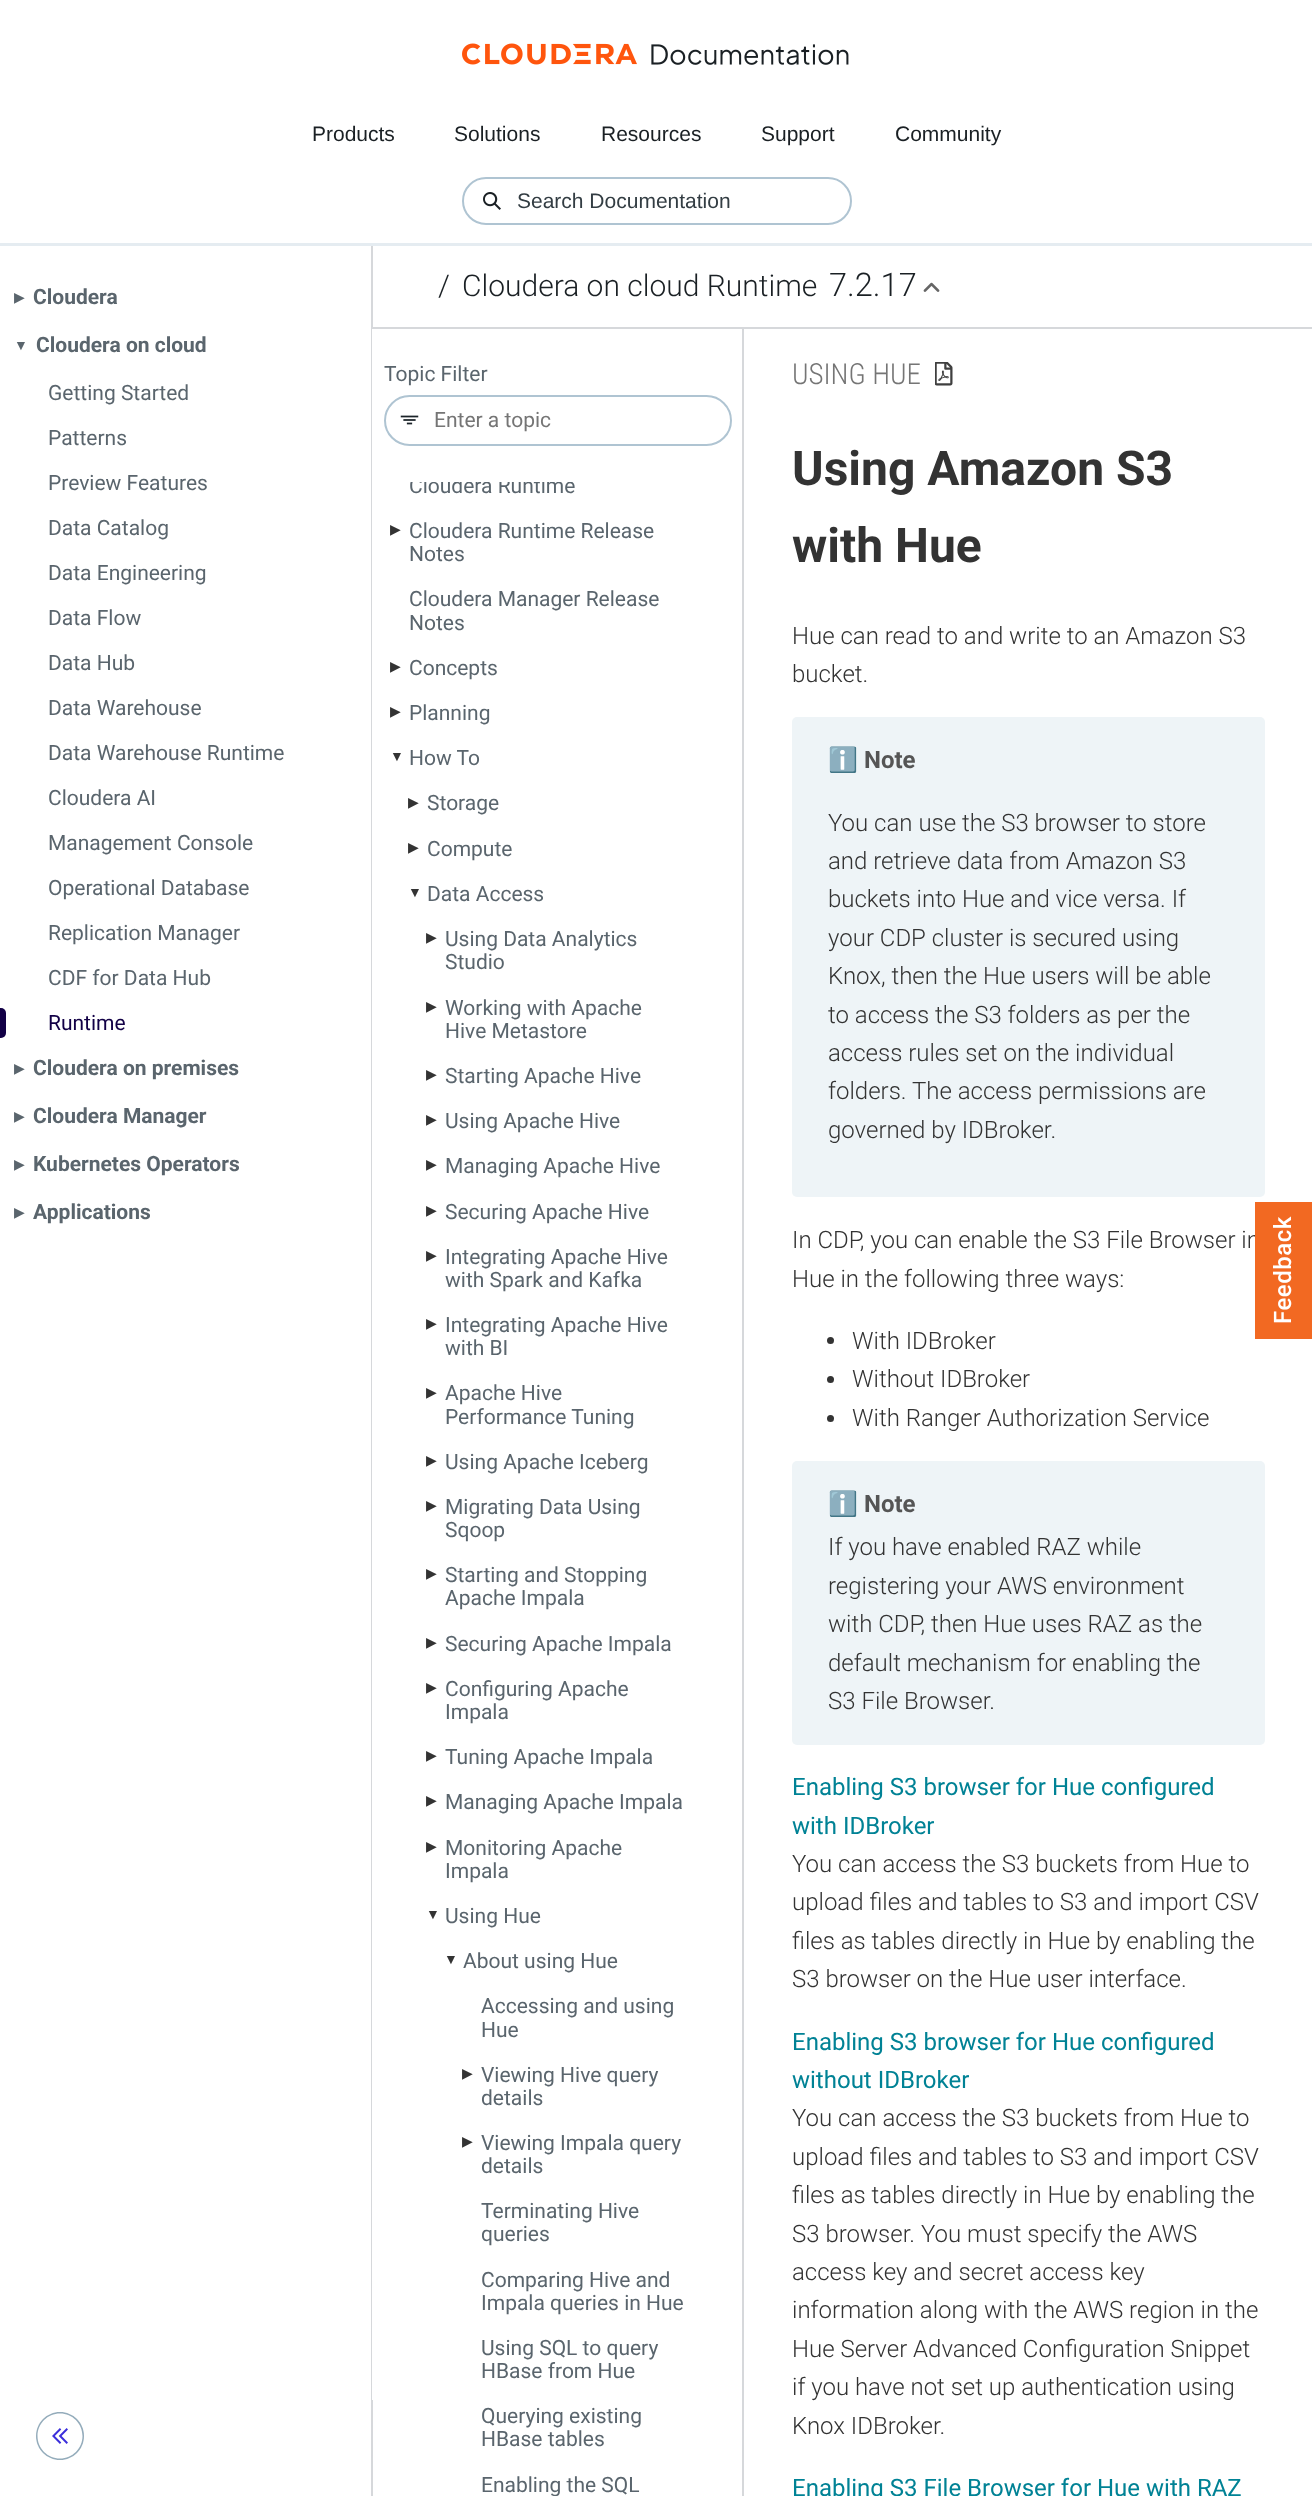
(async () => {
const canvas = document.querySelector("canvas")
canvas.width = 1312
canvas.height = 2496
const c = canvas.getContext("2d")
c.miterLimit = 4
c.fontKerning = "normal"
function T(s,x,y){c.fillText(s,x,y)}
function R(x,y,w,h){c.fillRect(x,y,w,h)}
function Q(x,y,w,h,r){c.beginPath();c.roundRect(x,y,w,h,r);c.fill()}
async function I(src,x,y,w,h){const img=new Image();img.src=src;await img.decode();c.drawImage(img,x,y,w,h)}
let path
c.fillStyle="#fff"
R(0,0,1312,2496)
c.fillStyle="#e5ecf1"
R(0,243,1312,3)
await I("1.png",462,43,387,22)
c.font="21px Liberation Sans"
c.fillStyle="#1a2024"
T("Products",312,141)
T("Solutions",454,141)
T("Resources",601,141)
T("Support",761,141)
T("Community",895,141)
c.beginPath()
c.roundRect(463,178,388,46,23)
c.strokeStyle="#afc4d2"
c.lineWidth=2
c.stroke()
await I("2.png",483,192,18,18)
c.fillStyle="#333d43"
T("Search Documentation",517,208)
c.fillStyle="#d6d8db"
R(371,246,2,2154)
c.fillStyle="#fff"
R(372,329,1,2071)
c.save()
c.beginPath()
c.rect(372,327,372,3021)
c.clip()
c.fillStyle="#d6d8db"
path = new Path2D("M224 178h668v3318h-668zm146 150h372v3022h-372z")
c.fill(path,"evenodd")
c.restore()
c.fillStyle="#d6d8db"
path = new Path2D("M372 327v2h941v-81h-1v79z")
c.fill(path)
c.font="300 30px Roboto"
c.fillStyle="#1a2024"
T("/",438,296)
T("Cloudera on cloud Runtime",462,296)
c.font="300 32.5px Roboto"
T("7.2.17",829,296)
await I("3.png",923,282,17,10)
c.font="14px DejaVu Sans"
c.fillStyle="#5a656d"
T("▶︎",14,302)
c.font="bold 21px Roboto"
T("Cloudera",33,304)
c.font="14px Liberation Sans"
T("▼",14,350)
c.font="bold 21px Roboto"
T("Cloudera on cloud",36,352)
c.font="21px Roboto"
T("Getting Started",48,400)
T("Patterns",48,445)
T("Preview Features",48,490)
T("Data Catalog",48,535)
T("Data Engineering",48,580)
T("Data Flow",48,625)
T("Data Hub",48,670)
T("Data Warehouse",48,715)
T("Data Warehouse Runtime",48,760)
T("Cloudera AI",48,805)
T("Management Console",48,850)
T("Operational Database",48,895)
T("Replication Manager",48,940)
T("CDF for Data Hub",48,985)
c.fillStyle="#120046"
c.beginPath()
c.roundRect(0,1008,6,30,[0,5,5,0])
c.fill()
T("Runtime",48,1030)
c.font="14px DejaVu Sans"
c.fillStyle="#5a656d"
T("▶︎",14,1073)
c.font="bold 21px Roboto"
T("Cloudera on premises",33,1075)
c.font="14px DejaVu Sans"
T("▶︎",14,1121)
c.font="bold 21px Roboto"
T("Cloudera Manager",33,1123)
c.font="14px DejaVu Sans"
T("▶︎",14,1169)
c.font="bold 21px Roboto"
T("Kubernetes Operators",33,1171)
c.font="14px DejaVu Sans"
T("▶︎",14,1217)
c.font="bold 21px Roboto"
T("Applications",33,1219)
c.fillStyle="#d6d8db"
R(371,2400,2,96)
await I("4.png",36,2412,48,48)
c.font="21px Roboto"
c.fillStyle="#5a656d"
T("Topic Filter",384,381)
c.beginPath()
c.roundRect(385,396,346,49,24.5)
c.stroke()
await I("5.png",400,415,19,10)
c.fillStyle="#757575"
T("Enter a topic",434,427)
c.save()
c.beginPath()
c.rect(372,482,372,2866)
c.clip()
c.fillStyle="#5a656d"
T("Cloudera Runtime",409,493)
c.restore()
c.font="14px DejaVu Sans"
c.fillStyle="#333"
T("▶︎",390,534)
c.font="21px Roboto"
c.fillStyle="#5a656d"
T("Cloudera Runtime Release",409,538)
T("Notes",409,561)
T("Cloudera Manager Release",409,606)
T("Notes",409,630)
c.font="14px DejaVu Sans"
c.fillStyle="#333"
T("▶︎",390,671)
c.font="21px Roboto"
c.fillStyle="#5a656d"
T("Concepts",409,675)
c.font="14px DejaVu Sans"
c.fillStyle="#333"
T("▶︎",390,716)
c.font="21px Roboto"
c.fillStyle="#5a656d"
T("Planning",409,720)
c.font="14px Liberation Sans"
c.fillStyle="#333"
T("▼",390,761)
c.font="21px Roboto"
c.fillStyle="#5a656d"
T("How To",409,765)
c.font="14px DejaVu Sans"
c.fillStyle="#333"
T("▶︎",408,807)
c.font="21px Roboto"
c.fillStyle="#5a656d"
T("Storage",427,810)
c.font="14px DejaVu Sans"
c.fillStyle="#333"
T("▶︎",408,852)
c.font="21px Roboto"
c.fillStyle="#5a656d"
T("Compute",427,856)
c.font="14px Liberation Sans"
c.fillStyle="#333"
T("▼",408,897)
c.font="21px Roboto"
c.fillStyle="#5a656d"
T("Data Access",427,901)
c.font="14px DejaVu Sans"
c.fillStyle="#333"
T("▶︎",426,942)
c.font="21px Roboto"
c.fillStyle="#5a656d"
T("Using Data Analytics",445,946)
T("Studio",445,969)
c.font="14px DejaVu Sans"
c.fillStyle="#333"
T("▶︎",426,1011)
c.font="21px Roboto"
c.fillStyle="#5a656d"
T("Working with Apache",445,1015)
T("Hive Metastore",445,1038)
c.font="14px DejaVu Sans"
c.fillStyle="#333"
T("▶︎",426,1079)
c.font="21px Roboto"
c.fillStyle="#5a656d"
T("Starting Apache Hive",445,1083)
c.font="14px DejaVu Sans"
c.fillStyle="#333"
T("▶︎",426,1124)
c.font="21px Roboto"
c.fillStyle="#5a656d"
T("Using Apache Hive",445,1128)
c.font="14px DejaVu Sans"
c.fillStyle="#333"
T("▶︎",426,1169)
c.font="21px Roboto"
c.fillStyle="#5a656d"
T("Managing Apache Hive",445,1173)
c.font="14px DejaVu Sans"
c.fillStyle="#333"
T("▶︎",426,1215)
c.font="21px Roboto"
c.fillStyle="#5a656d"
T("Securing Apache Hive",445,1219)
c.font="14px DejaVu Sans"
c.fillStyle="#333"
T("▶︎",426,1260)
c.font="21px Roboto"
c.fillStyle="#5a656d"
T("Integrating Apache Hive",445,1264)
T("with Spark and Kafka",445,1287)
c.font="14px DejaVu Sans"
c.fillStyle="#333"
T("▶︎",426,1328)
c.font="21px Roboto"
c.fillStyle="#5a656d"
T("Integrating Apache Hive",445,1332)
T("with BI",445,1355)
c.font="14px DejaVu Sans"
c.fillStyle="#333"
T("▶︎",426,1397)
c.font="21px Roboto"
c.fillStyle="#5a656d"
T("Apache Hive",445,1400)
T("Performance Tuning",445,1424)
c.font="14px DejaVu Sans"
c.fillStyle="#333"
T("▶︎",426,1465)
c.font="21px Roboto"
c.fillStyle="#5a656d"
T("Using Apache Iceberg",445,1469)
c.font="14px DejaVu Sans"
c.fillStyle="#333"
T("▶︎",426,1510)
c.font="21px Roboto"
c.fillStyle="#5a656d"
T("Migrating Data Using",445,1514)
T("Sqoop",445,1537)
c.font="14px DejaVu Sans"
c.fillStyle="#333"
T("▶︎",426,1578)
c.font="21px Roboto"
c.fillStyle="#5a656d"
T("Starting and Stopping",445,1582)
T("Apache Impala",445,1605)
c.font="14px DejaVu Sans"
c.fillStyle="#333"
T("▶︎",426,1647)
c.font="21px Roboto"
c.fillStyle="#5a656d"
T("Securing Apache Impala",445,1651)
c.font="14px DejaVu Sans"
c.fillStyle="#333"
T("▶︎",426,1692)
c.font="21px Roboto"
c.fillStyle="#5a656d"
T("Configuring Apache",445,1696)
T("Impala",445,1719)
c.font="14px DejaVu Sans"
c.fillStyle="#333"
T("▶︎",426,1760)
c.font="21px Roboto"
c.fillStyle="#5a656d"
T("Tuning Apache Impala",445,1764)
c.font="14px DejaVu Sans"
c.fillStyle="#333"
T("▶︎",426,1805)
c.font="21px Roboto"
c.fillStyle="#5a656d"
T("Managing Apache Impala",445,1809)
c.font="14px DejaVu Sans"
c.fillStyle="#333"
T("▶︎",426,1851)
c.font="21px Roboto"
c.fillStyle="#5a656d"
T("Monitoring Apache",445,1855)
T("Impala",445,1878)
c.font="14px Liberation Sans"
c.fillStyle="#333"
T("▼",426,1919)
c.font="21px Roboto"
c.fillStyle="#5a656d"
T("Using Hue",445,1923)
c.font="14px Liberation Sans"
c.fillStyle="#333"
T("▼",444,1964)
c.font="21px Roboto"
c.fillStyle="#5a656d"
T("About using Hue",463,1968)
T("Accessing and using",481,2013)
T("Hue",481,2037)
c.font="14px DejaVu Sans"
c.fillStyle="#333"
T("▶︎",462,2078)
c.font="21px Roboto"
c.fillStyle="#5a656d"
T("Viewing Hive query",481,2082)
T("details",481,2105)
c.font="14px DejaVu Sans"
c.fillStyle="#333"
T("▶︎",462,2146)
c.font="21px Roboto"
c.fillStyle="#5a656d"
T("Viewing Impala query",481,2150)
T("details",481,2173)
T("Terminating Hive",481,2218)
T("queries",481,2241)
T("Comparing Hive and",481,2287)
T("Impala queries in Hue",481,2310)
T("Using SQL to query",481,2355)
T("HBase from Hue",481,2378)
T("Querying existing",481,2423)
T("HBase tables",481,2446)
T("Enabling the SQL",481,2492)
c.font="300 29px Roboto Condensed"
c.fillStyle="#757575"
T("USING HUE",792,384)
await I("6.png",935,362,18,24)
c.font="bold 48px Roboto"
c.fillStyle="#333"
T("Using Amazon S3",792,485)
T("with Hue",792,562)
c.font="300 24px Roboto"
T("Hue can read to and write to an Amazon S3",792,644)
T("bucket.",792,682)
c.fillStyle="#eef4f7"
Q(792,717,473,480,5)
c.font="bold 24px Noto Color Emoji"
c.fillStyle="#555"
T("ℹ️",828,768)
c.font="bold 24px Roboto"
T("Note",864,768)
c.font="300 24px Roboto"
c.fillStyle="#333"
T("You can use the S3 browser to store",828,831)
T("and retrieve data from Amazon S3",828,869)
T("buckets into Hue and vice versa. If",828,907)
T("your CDP cluster is secured using",828,946)
T("Knox, then the Hue users will be able",828,984)
T("to access the S3 folders as per the",828,1023)
T("access rules set on the individual",828,1061)
T("folders. The access permissions are",828,1099)
T("governed by IDBroker.",828,1138)
T("In CDP, you can enable the S3 File Browser in",792,1248)
T("Hue in the following three ways:",792,1287)
c.beginPath()
c.arc(830.5,1340.5,3.5,0,7)
c.fill()
T("With IDBroker",852,1349)
c.beginPath()
c.arc(830.5,1379.5,3.5,0,7)
c.fill()
T("Without IDBroker",852,1387)
c.beginPath()
c.arc(830.5,1418.5,3.5,0,7)
c.fill()
T("With Ranger Authorization Service",852,1426)
c.fillStyle="#eef4f7"
Q(792,1461,473,284,5)
c.font="bold 24px Noto Color Emoji"
c.fillStyle="#555"
T("ℹ️",828,1512)
c.font="bold 24px Roboto"
T("Note",864,1512)
c.font="300 24px Roboto"
c.fillStyle="#333"
T("If you have enabled RAZ while",828,1555)
T("registering your AWS environment",828,1594)
T("with CDP, then Hue uses RAZ as the",828,1632)
T("default mechanism for enabling the",828,1671)
T("S3 File Browser.",828,1709)
c.font="24px Roboto"
c.fillStyle="#008295"
T("Enabling S3 browser for Hue configured",792,1795)
T("with IDBroker",792,1834)
c.font="300 24px Roboto"
c.fillStyle="#333"
T("You can access the S3 buckets from Hue to",792,1872)
T("upload files and tables to S3 and import CSV",792,1910)
T("files as tables directly in Hue by enabling the",792,1949)
T("S3 browser on the Hue user interface.",792,1987)
c.font="24px Roboto"
c.fillStyle="#008295"
T("Enabling S3 browser for Hue configured",792,2050)
T("without IDBroker",792,2088)
c.font="300 24px Roboto"
c.fillStyle="#333"
T("You can access the S3 buckets from Hue to",792,2126)
T("upload files and tables to S3 and import CSV",792,2165)
T("files as tables directly in Hue by enabling the",792,2203)
T("S3 browser. You must specify the AWS",792,2242)
T("access key and secret access key",792,2280)
T("information along with the AWS region in the",792,2318)
T("Hue Server Advanced Configuration Snippet",792,2357)
T("if you have not set up authentication using",792,2395)
T("Knox IDBroker.",792,2434)
c.font="24px Roboto"
c.fillStyle="#008295"
T("Enabling S3 File Browser for Hue with RAZ",792,2496)
c.fillStyle="#f26922"
R(1255,1202,57,137)
c.letterSpacing="0.5px"
c.font="500 24px Roboto"
c.fillStyle="#fff"
c.save()
c.translate(1291,1324)
c.rotate(-90 * Math.PI / 180)
c.fillText("Feedback",0,0)
c.restore()
})()
